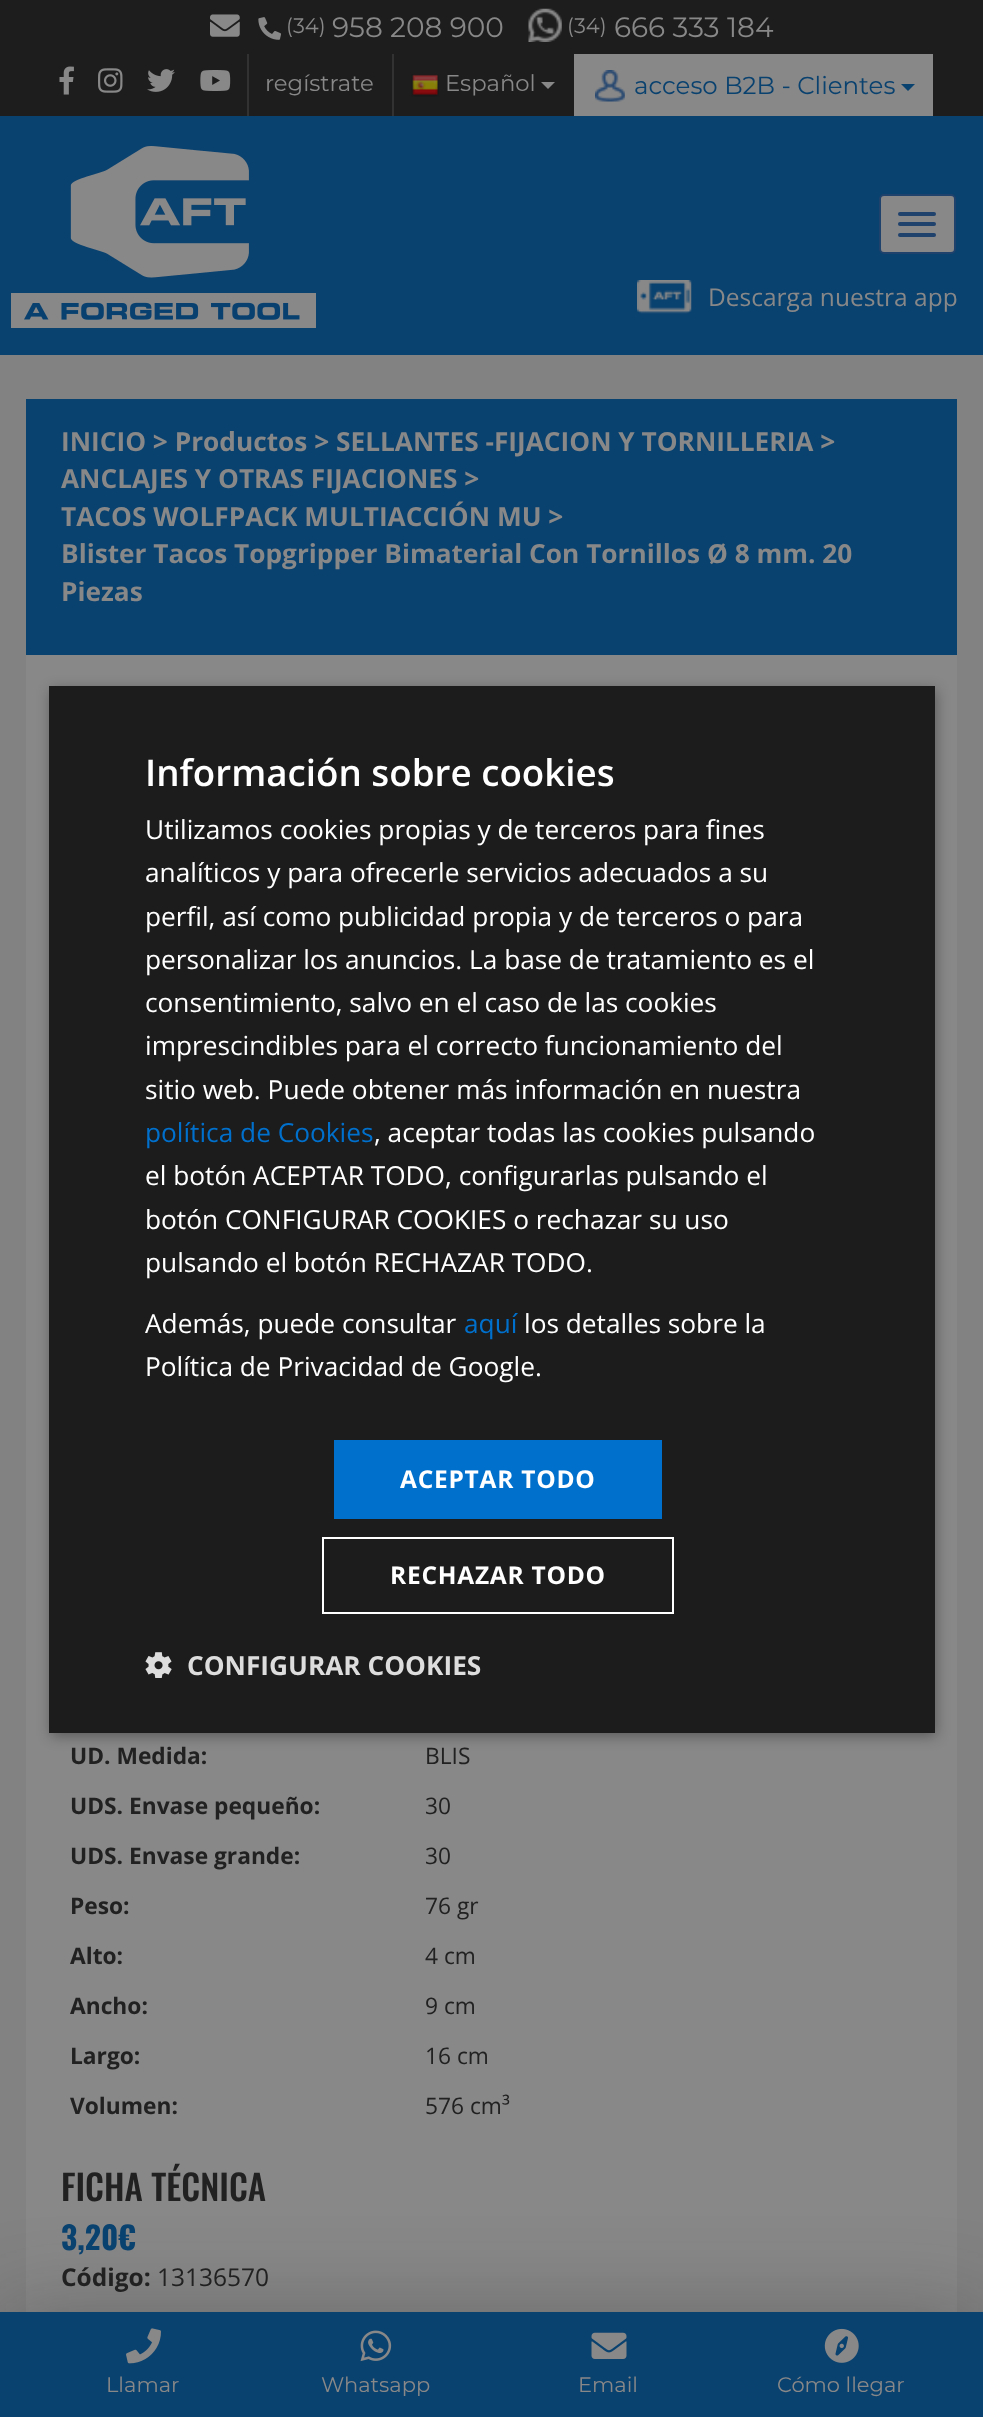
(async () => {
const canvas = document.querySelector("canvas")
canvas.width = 983
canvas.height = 2417
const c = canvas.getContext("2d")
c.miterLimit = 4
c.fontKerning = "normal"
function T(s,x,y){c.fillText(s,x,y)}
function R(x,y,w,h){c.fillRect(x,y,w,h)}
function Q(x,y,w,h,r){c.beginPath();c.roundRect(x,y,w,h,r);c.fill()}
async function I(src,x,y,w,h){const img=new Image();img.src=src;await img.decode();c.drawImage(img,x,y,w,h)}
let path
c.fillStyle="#828282"
R(0,0,983,2417)
c.fillStyle="#1d1d1d"
R(0,0,983,116)
await I("1.png",210,14,30,23)
await I("2.png",258,17,23,23)
c.font="21px Montserrat"
c.fillStyle="#888"
T("(34)",286,33)
c.font="28px Montserrat"
T("958 208 900",332,37)
await I("3.png",528,8,34,34)
c.font="21px Montserrat"
T("(34)",567,33)
c.font="28px Montserrat"
T("666 333 184",614,37)
await I("4.png",59,66,15,29)
await I("5.png",98,68,25,25)
await I("6.png",147,69,28,23)
await I("7.png",200,70,31,21)
c.fillStyle="#323232"
R(247,54,2,62)
c.font="22.75px Montserrat"
c.fillStyle="#888"
T("regístrate",265,91)
c.fillStyle="#323232"
R(392,54,2,62)
await I("8.png",411,74,28,23)
c.fillStyle="#888"
T("Español",445,91)
path = new Path2D("M541 82h14l-7 7z")
c.fill(path)
R(574,54,359,62)
await I("9.png",595,70,30,32)
c.font="24.5px Montserrat"
c.fillStyle="#09416f"
T("acceso B2B - Clientes",634,94)
path = new Path2D("M901 84h14l-7 7z")
c.fill(path)
c.fillStyle="#888"
R(26,655,931,1657)
c.fillStyle="#2222224d"
c.filter="blur(44px)"
c.beginPath()
c.rect(0,2312,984,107)
c.fill()
c.filter="none"
c.fillStyle="#09416f"
R(0,2312,983,105)
await I("10.png",126,2328,35,36)
c.font="21px Montserrat"
c.fillStyle="#888"
T("Llamar",106,2392)
await I("11.png",360,2330,32,32)
T("Whatsapp",321,2392)
await I("12.png",591,2332,36,27)
T("Email",578,2392)
await I("13.png",824,2328,35,35)
T("Cómo llegar",777,2392)
c.fillStyle="#09416f"
R(0,116,983,239)
await I("14.png",11,146,305,182)
c.fillStyle="#888"
c.beginPath()
c.roundRect(880,195,75,58,4)
c.fill()
c.strokeStyle="#1f426c"
c.lineWidth=2
c.stroke()
c.fillStyle="#1f426c"
Q(898,212,38,4,2)
Q(898,222,38,4,2)
Q(898,233,38,4,2)
await I("15.png",637,280,55,34)
c.font="24.5px Open Sans"
c.fillStyle="#888"
T("Descarga nuestra app",708,306)
c.fillStyle="#09416f"
R(26,399,931,256)
c.font="bold 26.25px Open Sans"
c.fillStyle="#888"
T("INICIO > Productos > SELLANTES -FIJACION Y TORNILLERIA >",61,451)
T("ANCLAJES Y OTRAS FIJACIONES >",61,488)
T("TACOS WOLFPACK MULTIACCIÓN MU >",61,526)
T("Blister Tacos Topgripper Bimaterial Con Tornillos Ø 8 mm. 20",61,563)
T("Piezas",61,601)
c.font="bold 22.75px Open Sans"
c.fillStyle="#212121"
T("UD. Medida:",70,1764)
c.font="22.75px Open Sans"
T("BLIS",425,1764)
c.font="bold 22.75px Open Sans"
T("UDS. Envase pequeño:",70,1814)
c.font="22.75px Open Sans"
T("30",425,1814)
c.font="bold 22.75px Open Sans"
T("UDS. Envase grande:",70,1864)
c.font="22.75px Open Sans"
T("30",425,1864)
c.font="bold 22.75px Open Sans"
T("Peso:",70,1914)
c.font="22.75px Open Sans"
T("76 gr",425,1914)
c.font="bold 22.75px Open Sans"
T("Alto:",70,1964)
c.font="22.75px Open Sans"
T("4 cm",425,1964)
c.font="bold 22.75px Open Sans"
T("Ancho:",70,2014)
c.font="22.75px Open Sans"
T("9 cm",425,2014)
c.font="bold 22.75px Open Sans"
T("Largo:",70,2064)
c.font="22.75px Open Sans"
T("16 cm",425,2064)
c.font="bold 22.75px Open Sans"
T("Volumen:",70,2114)
c.font="22.75px Open Sans"
T("576 cm³",425,2114)
c.font="500 35px Oswald"
T("FICHA TÉCNICA",61,2201)
c.font="bold 31.5px Oswald"
c.fillStyle="#09416f"
T("3,20€",61,2250)
c.font="bold 24.5px Open Sans"
c.fillStyle="#212121"
T("Código:",61,2286)
c.font="24.5px Open Sans"
T("13136570",157,2286)
c.fillStyle="#00000059"
c.filter="blur(7px)"
c.beginPath()
c.rect(51,690,885,1046)
c.fill()
c.filter="none"
c.fillStyle="#1c1c1c"
R(49,686,886,1047)
c.font="600 36.75px Open Sans"
c.fillStyle="#fff"
T("Información sobre cookies",145,786)
c.font="26.25px Open Sans"
T("Utilizamos cookies propias y de terceros para fines",145,839)
T("analíticos y para ofrecerle servicios adecuados a su",145,882)
T("perfil, así como publicidad propia y de terceros o para",145,926)
T("personalizar los anuncios. La base de tratamiento es el",145,969)
T("consentimiento, salvo en el caso de las cookies",145,1012)
T("imprescindibles para el correcto funcionamiento del",145,1055)
T("sitio web. Puede obtener más información en nuestra",145,1099)
c.fillStyle="#0070cd"
T("política de Cookies",145,1142)
c.fillStyle="#fff"
T(", aceptar todas las cookies pulsando",374,1142)
T("el botón ACEPTAR TODO, configurarlas pulsando el",145,1185)
T("botón CONFIGURAR COOKIES o rechazar su uso",145,1229)
T("pulsando el botón RECHAZAR TODO.",145,1272)
T("Además, puede consultar",145,1333)
c.fillStyle="#0070cd"
T("aquí",464,1333)
c.fillStyle="#fff"
T("los detalles sobre la",524,1333)
T("Política de Privacidad de Google.",145,1376)
c.fillStyle="#0070cd"
R(334,1440,328,79)
c.letterSpacing="0.75px"
c.font="bold 24.5px Open Sans"
c.fillStyle="#fff"
T("ACEPTAR TODO",400,1488)
c.strokeStyle="#fff"
c.strokeRect(323,1538,350,75)
T("RECHAZAR TODO",390,1584)
await I("16.png",145,1652,27,26)
c.letterSpacing="0px"
c.font="bold 26.25px Open Sans"
c.fillStyle="#ddd"
T("CONFIGURAR COOKIES",187,1675)
})()
